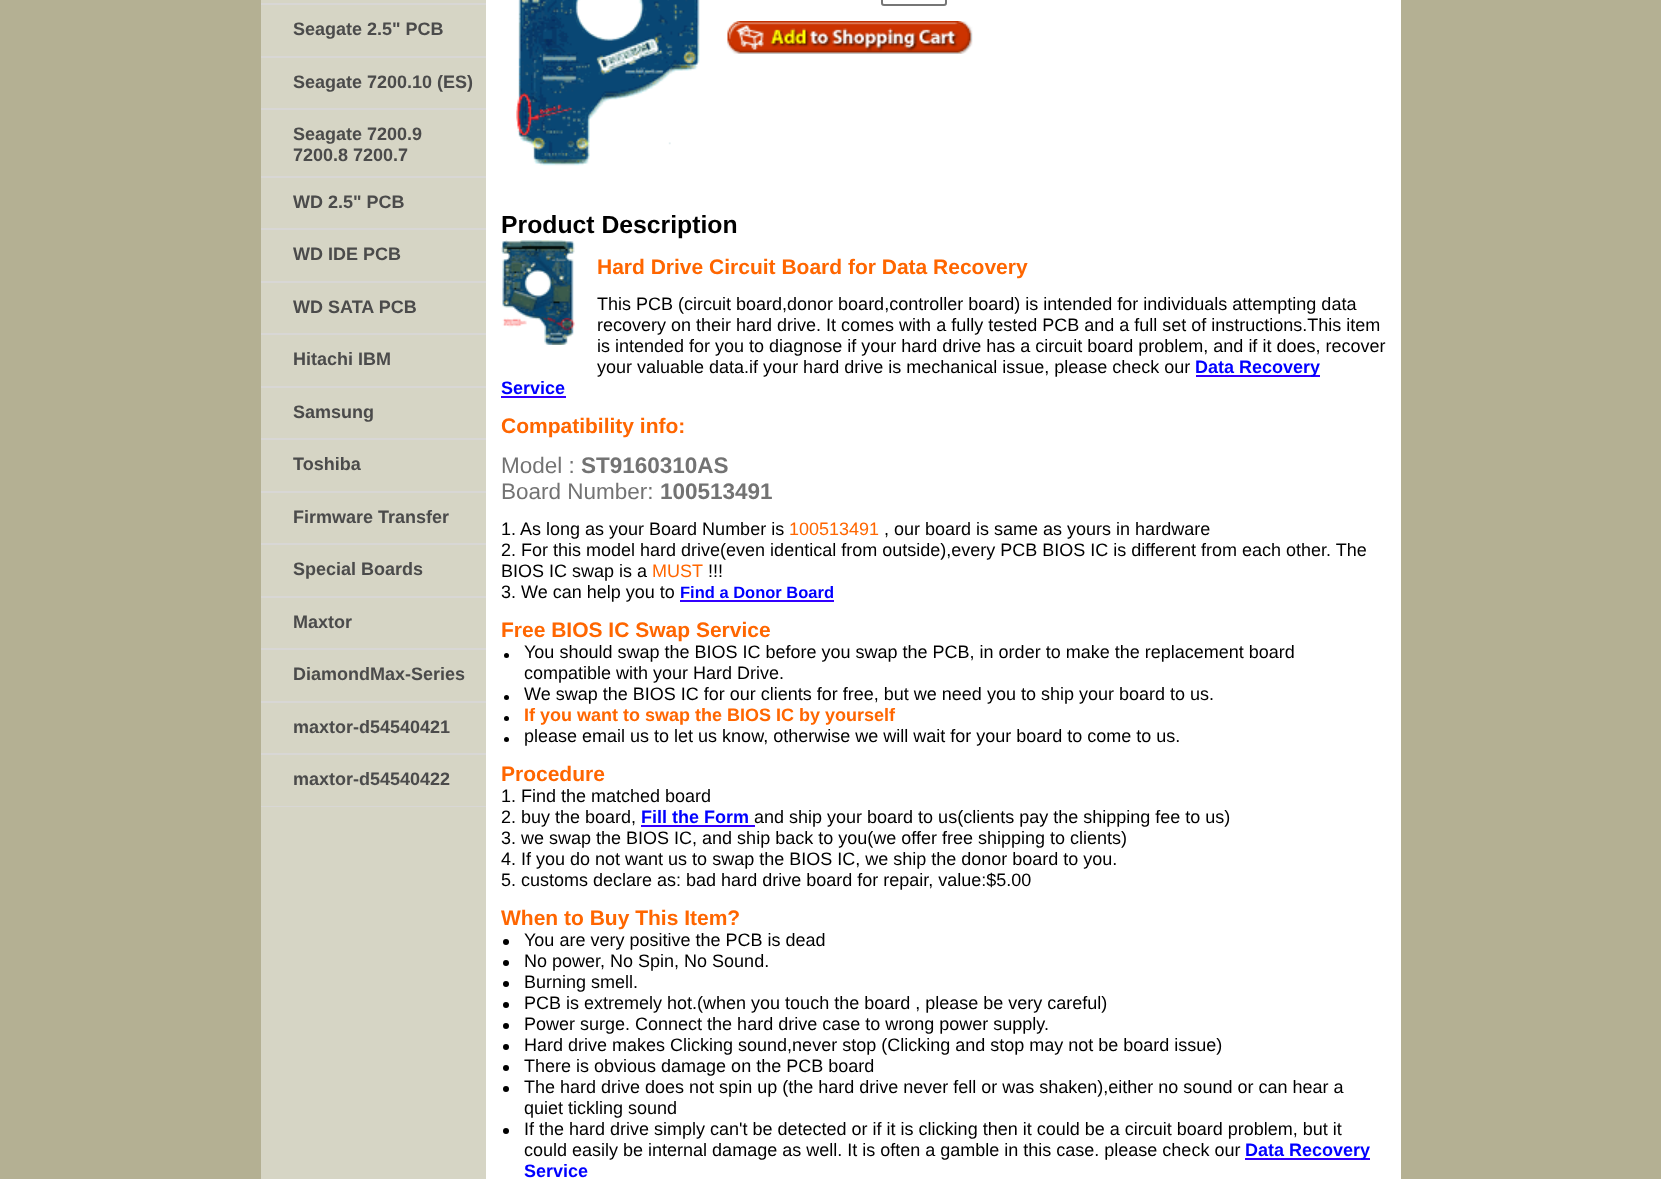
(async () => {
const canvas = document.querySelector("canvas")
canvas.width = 1661
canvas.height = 1179
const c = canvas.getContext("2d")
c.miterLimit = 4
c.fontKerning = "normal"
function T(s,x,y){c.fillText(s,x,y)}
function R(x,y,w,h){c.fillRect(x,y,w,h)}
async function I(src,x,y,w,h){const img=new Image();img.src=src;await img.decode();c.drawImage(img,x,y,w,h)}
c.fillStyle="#b4b093"
R(0,0,1661,1179)
c.fillStyle="#fff"
R(486,0,915,1179)
c.fillStyle="#d6d5c5"
R(261,0,225,1179)
c.fillStyle="#d8d7d5"
R(261,3,225,2)
R(261,56,225,2)
c.font="bold 18px Liberation Sans"
c.fillStyle="#4b4b4b"
T("Seagate 2.5\" PCB",293,35)
c.fillStyle="#d8d7d5"
R(261,108,225,2)
c.fillStyle="#4b4b4b"
T("Seagate 7200.10 (ES)",293,88)
c.fillStyle="#d8d7d5"
R(261,176,225,2)
c.fillStyle="#4b4b4b"
T("Seagate 7200.9",293,140)
T("7200.8 7200.7",293,161)
c.fillStyle="#d8d7d5"
R(261,228,225,2)
c.fillStyle="#4b4b4b"
T("WD 2.5\" PCB",293,208)
c.fillStyle="#d8d7d5"
R(261,281,225,2)
c.fillStyle="#4b4b4b"
T("WD IDE PCB",293,260)
c.fillStyle="#d8d7d5"
R(261,333,225,2)
c.fillStyle="#4b4b4b"
T("WD SATA PCB",293,313)
c.fillStyle="#d8d7d5"
R(261,386,225,2)
c.fillStyle="#4b4b4b"
T("Hitachi IBM",293,365)
c.fillStyle="#d8d7d5"
R(261,438,225,2)
c.fillStyle="#4b4b4b"
T("Samsung",293,418)
c.fillStyle="#d8d7d5"
R(261,491,225,2)
c.fillStyle="#4b4b4b"
T("Toshiba",293,470)
c.fillStyle="#d8d7d5"
R(261,543,225,2)
c.fillStyle="#4b4b4b"
T("Firmware Transfer",293,523)
c.fillStyle="#d8d7d5"
R(261,596,225,2)
c.fillStyle="#4b4b4b"
T("Special Boards",293,575)
c.fillStyle="#d8d7d5"
R(261,648,225,2)
c.fillStyle="#4b4b4b"
T("Maxtor",293,628)
c.fillStyle="#d8d7d5"
R(261,701,225,2)
c.fillStyle="#4b4b4b"
T("DiamondMax-Series",293,680)
c.fillStyle="#d8d7d5"
R(261,753,225,2)
c.fillStyle="#4b4b4b"
T("maxtor-d54540421",293,733)
c.fillStyle="#d8d7d5"
R(261,806,225,1)
c.fillStyle="#4b4b4b"
T("maxtor-d54540422",293,785)
await I("1.png",516,0,184,166)
c.beginPath()
c.roundRect(882,-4,64,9,2)
c.strokeStyle="#767676"
c.lineWidth=2
c.stroke()
await I("2.png",727,21,246,33)
c.font="bold 24.75px Liberation Sans"
c.fillStyle="#000"
T("Product Description",501,233)
await I("3.png",501,240,74,105)
c.font="bold 21px Liberation Sans"
c.fillStyle="#f60"
T("Hard Drive Circuit Board for Data Recovery",597,274)
c.font="18px Liberation Sans"
c.fillStyle="#000"
T("This PCB (circuit board,donor board,controller board) is intended for individuals attempting data",597,310)
T("recovery on their hard drive. It comes with a fully tested PCB and a full set of instructions.This item",597,331)
T("is intended for you to diagnose if your hard drive has a circuit board problem, and if it does, recover",597,352)
T("your valuable data.if your hard drive is mechanical issue, please check our",597,373)
c.fillStyle="#30f"
R(1196,375,124,2)
c.font="bold 18px Liberation Sans"
c.fillStyle="#00f"
T("Data Recovery",1195,373)
T("Service",501,394)
c.fillStyle="#30f"
R(501,396,65,2)
c.font="bold 21px Liberation Sans"
c.fillStyle="#f60"
T("Compatibility info:",501,433)
c.font="22.5px Liberation Sans"
c.fillStyle="#737373"
T("Model :",501,473)
c.font="bold 22.5px Liberation Sans"
T("ST9160310AS",581,473)
c.font="22.5px Liberation Sans"
T("Board Number:",501,499)
c.font="bold 22.5px Liberation Sans"
T("100513491",660,499)
c.font="18px Liberation Sans"
c.fillStyle="#000"
T("1. As long as your Board Number is",501,535)
c.fillStyle="#f60"
T("100513491",789,535)
c.fillStyle="#000"
T(", our board is same as yours in hardware",884,535)
T("2. For this model hard drive(even identical from outside),every PCB BIOS IC is different from each other. The",501,556)
T("BIOS IC swap is a",501,577)
c.fillStyle="#f60"
T("MUST",652,577)
c.fillStyle="#000"
T("!!!",708,577)
T("3. We can help you to",501,598)
c.font="bold 16.5px Liberation Sans"
c.fillStyle="#00f"
T("Find a Donor Board",680,598)
c.fillStyle="#30f"
R(680,600,154,2)
c.font="bold 21px Liberation Sans"
c.fillStyle="#f60"
T("Free BIOS IC Swap Service",501,637)
c.fillStyle="#000"
c.beginPath()
c.arc(506.5,655.5,2.5,0,7)
c.fill()
c.font="18px Liberation Sans"
T("You should swap the BIOS IC before you swap the PCB, in order to make the replacement board",524,658)
T("compatible with your Hard Drive.",524,679)
c.beginPath()
c.arc(506.5,697.5,2.5,0,7)
c.fill()
T("We swap the BIOS IC for our clients for free, but we need you to ship your board to us.",524,700)
c.beginPath()
c.arc(506.5,718.5,2.5,0,7)
c.fill()
c.font="bold 18px Liberation Sans"
c.fillStyle="#f60"
T("If you want to swap the BIOS IC by yourself",524,721)
c.fillStyle="#000"
c.beginPath()
c.arc(506.5,739.5,2.5,0,7)
c.fill()
c.font="18px Liberation Sans"
T("please email us to let us know, otherwise we will wait for your board to come to us.",524,742)
c.font="bold 21px Liberation Sans"
c.fillStyle="#f60"
T("Procedure",501,781)
c.font="18px Liberation Sans"
c.fillStyle="#000"
T("1. Find the matched board",501,802)
T("2. buy the board,",501,823)
c.font="bold 18px Liberation Sans"
c.fillStyle="#00f"
T("Fill the Form",641,823)
c.fillStyle="#30f"
R(641,825,114,2)
c.font="18px Liberation Sans"
c.fillStyle="#000"
T("and ship your board to us(clients pay the shipping fee to us)",754,823)
T("3. we swap the BIOS IC, and ship back to you(we offer free shipping to clients)",501,844)
T("4. If you do not want us to swap the BIOS IC, we ship the donor board to you.",501,865)
T("5. customs declare as: bad hard drive board for repair, value:$5.00",501,886)
c.font="bold 21px Liberation Sans"
c.fillStyle="#f60"
T("When to Buy This Item?",501,925)
c.fillStyle="#000"
c.beginPath()
c.arc(506,942,3,0,7)
c.fill()
c.font="18px Liberation Sans"
T("You are very positive the PCB is dead",524,946)
c.beginPath()
c.arc(506,963,3,0,7)
c.fill()
T("No power, No Spin, No Sound.",524,967)
c.beginPath()
c.arc(506,984,3,0,7)
c.fill()
T("Burning smell.",524,988)
c.beginPath()
c.arc(506,1005,3,0,7)
c.fill()
T("PCB is extremely hot.(when you touch the board , please be very careful)",524,1009)
c.beginPath()
c.arc(506,1026,3,0,7)
c.fill()
T("Power surge. Connect the hard drive case to wrong power supply.",524,1030)
c.beginPath()
c.arc(506,1047,3,0,7)
c.fill()
T("Hard drive makes Clicking sound,never stop (Clicking and stop may not be board issue)",524,1051)
c.beginPath()
c.arc(506,1068,3,0,7)
c.fill()
T("There is obvious damage on the PCB board",524,1072)
c.beginPath()
c.arc(506,1089,3,0,7)
c.fill()
T("The hard drive does not spin up (the hard drive never fell or was shaken),either no sound or can hear a",524,1093)
T("quiet tickling sound",524,1114)
c.beginPath()
c.arc(506,1131,3,0,7)
c.fill()
T("If the hard drive simply can't be detected or if it is clicking then it could be a circuit board problem, but it",524,1135)
T("could easily be internal damage as well. It is often a gamble in this case. please check our",524,1156)
c.fillStyle="#30f"
R(1245,1158,125,2)
c.font="bold 18px Liberation Sans"
c.fillStyle="#00f"
T("Data Recovery",1245,1156)
T("Service",524,1177)
})()
